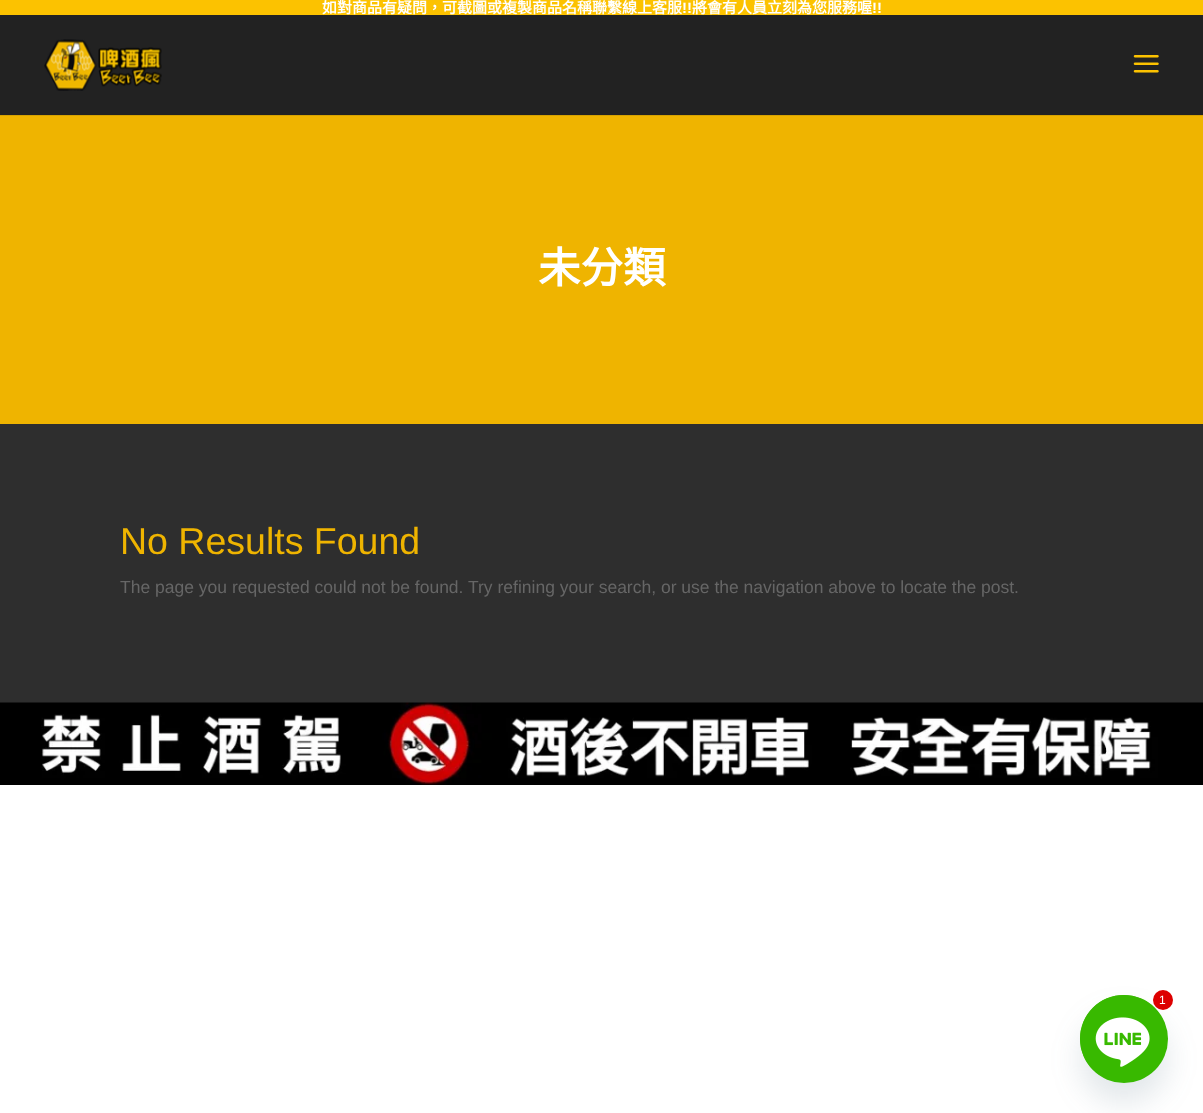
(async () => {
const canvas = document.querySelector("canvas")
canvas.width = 1203
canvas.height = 1113
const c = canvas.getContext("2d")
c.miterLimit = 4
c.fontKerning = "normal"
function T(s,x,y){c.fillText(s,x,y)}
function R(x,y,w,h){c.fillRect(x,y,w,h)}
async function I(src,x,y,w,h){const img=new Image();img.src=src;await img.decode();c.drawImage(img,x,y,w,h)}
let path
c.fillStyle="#fff"
R(0,0,1203,1113)
c.fillStyle="#fcc200"
R(0,0,1203,15)
c.font="bold 15px Noto Sans CJK HK"
c.fillStyle="#fff"
T("如對商品有疑問，可截圖或複製商品名稱聯繫線上客服",322,13)
c.font="bold 15px Liberation Sans"
T("!!",682,13)
c.font="bold 15px Noto Sans CJK HK"
T("將會有人員立刻為您服務喔",692,13)
c.font="bold 15px Liberation Sans"
T("!!",872,13)
c.fillStyle="#d7a200"
path = new Path2D("M0 115v1h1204v-100v99z")
c.fill(path)
c.fillStyle="#222"
R(0,15,1203,100)
await I("1.png",44,39,118,52)
await I("2.png",1133,55,26,18)
c.fillStyle="#2e2e2e"
R(0,424,1203,279)
c.fillStyle="#efb400"
R(0,116,1203,308)
c.font="bold 42.5px Noto Sans CJK HK"
c.fillStyle="#fff"
T("未分類",538,283)
c.font="37.5px Liberation Sans"
c.fillStyle="#efb400"
T("No Results Found",120,554)
c.font="17.5px Liberation Sans"
c.fillStyle="#666"
T("The page you requested could not be found. Try refining your search, or use the navigation above to locate the post.",120,593)
await I("3.png",0,702,1203,83)
c.fillStyle="#49687e29"
c.filter="blur(15px)"
c.beginPath()
c.roundRect(1080,1015,88,88,44)
c.fill()
c.filter="none"
c.fillStyle="#38b900"
c.beginPath()
c.arc(1124,1039,44,0,7)
c.fill()
await I("4.png",1080,995,80,82)
c.fillStyle="#d00"
c.beginPath()
c.arc(1163,1000,10,0,7)
c.fill()
c.font="12px Liberation Sans"
c.fillStyle="#fff"
T("1",1159,1004)
})()
